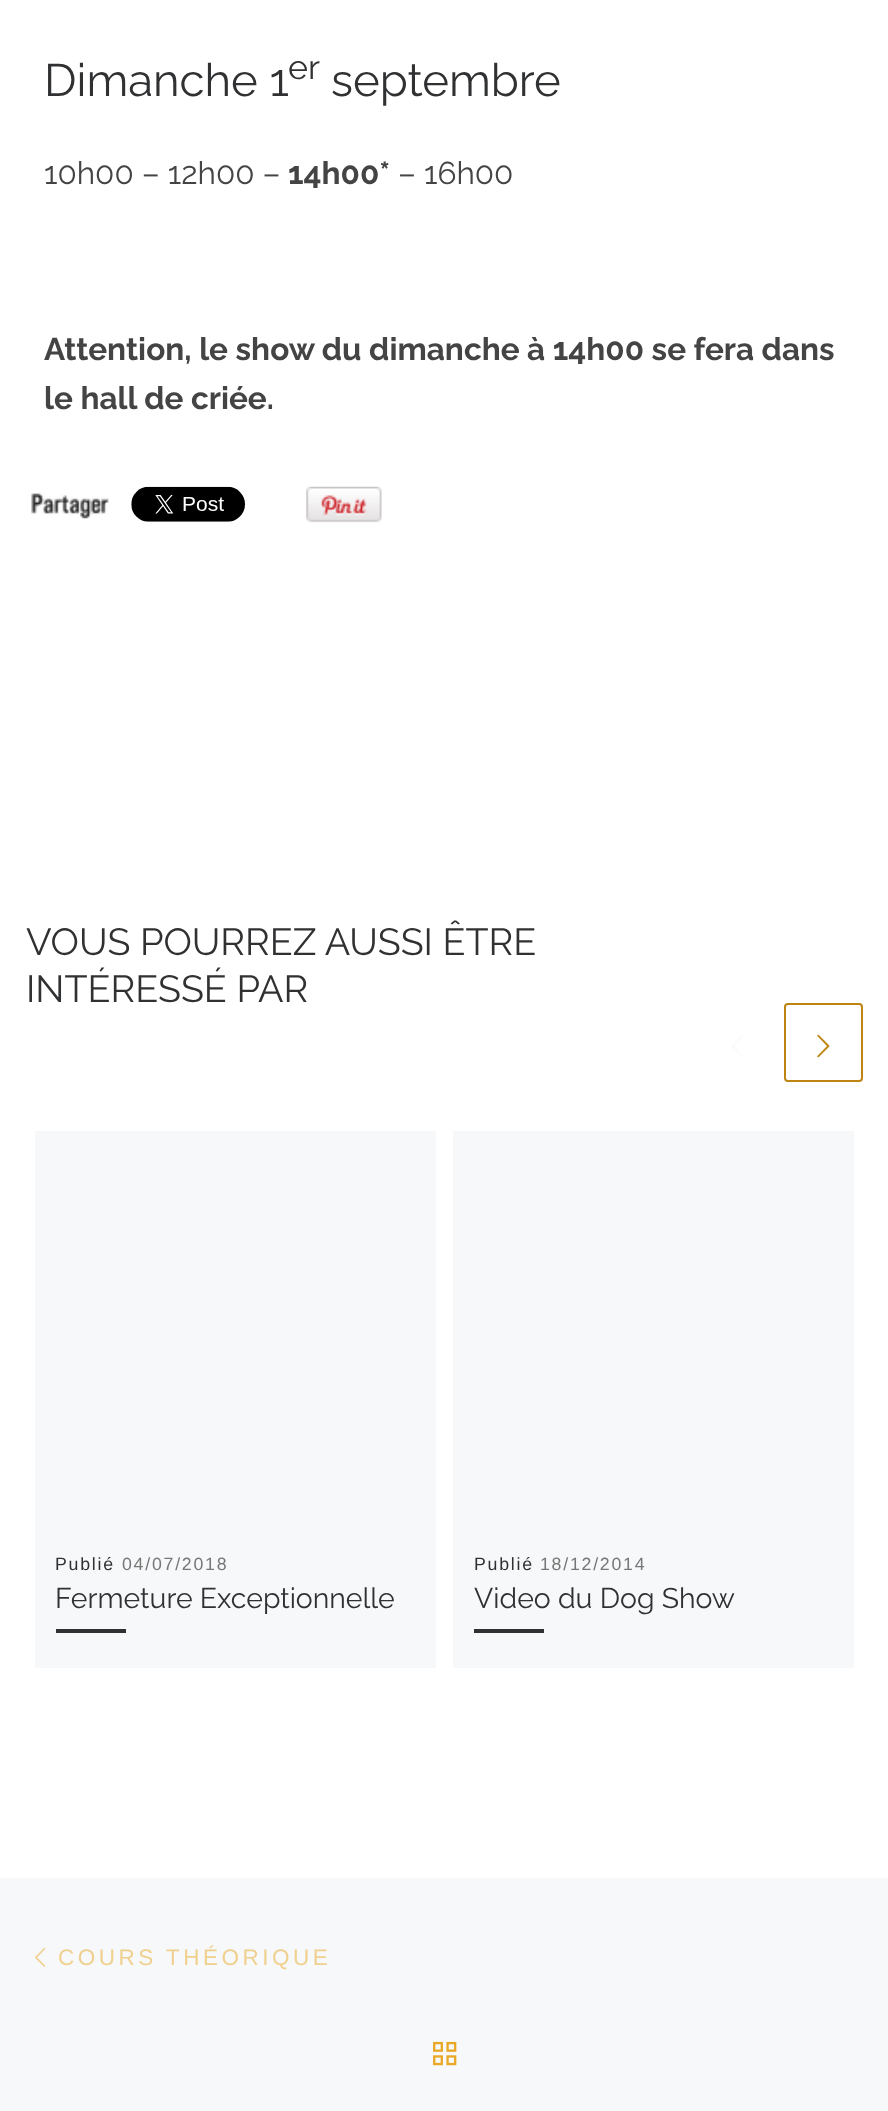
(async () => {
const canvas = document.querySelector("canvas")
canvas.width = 888
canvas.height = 2111
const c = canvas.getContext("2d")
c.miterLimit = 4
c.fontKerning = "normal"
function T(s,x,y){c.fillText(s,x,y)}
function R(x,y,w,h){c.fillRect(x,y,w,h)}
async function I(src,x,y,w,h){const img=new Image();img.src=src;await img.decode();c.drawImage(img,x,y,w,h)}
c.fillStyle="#fff"
R(0,0,888,2111)
c.font="45.5px Raleway"
c.fillStyle="#303133"
T("Dimanche 1",44,96)
c.font="34px Raleway"
T("er",288,79)
c.font="45.5px Raleway"
T("septembre",331,96)
c.font="31.5px Raleway"
c.fillStyle="#444"
T("10h00 – 12h00 –",44,184)
c.font="bold 31.5px Raleway"
T("14h00*",288,184)
c.font="31.5px Raleway"
T("– 16h00",398,184)
c.font="bold 31.5px Raleway"
T("Attention, le show du dimanche à 14h00 se fera dans",44,360)
T("le hall de criée.",44,409)
await I("1.png",31,493,78,26)
await I("2.png",131,486,114,36)
await I("3.png",306,486,76,37)
c.font="37.75px Raleway"
c.fillStyle="#303133"
T("VOUS POURREZ AUSSI ÊTRE",26,955)
T("INTÉRESSÉ PAR",26,1002)
await I("4.png",732,1035,11,22)
c.beginPath()
c.roundRect(785,1004,77,77,3)
c.strokeStyle="#be8513"
c.lineWidth=2
c.stroke()
await I("5.png",817,1034,13,24)
c.fillStyle="#f7f8f9"
R(35,1131,401,537)
c.letterSpacing="1.75px"
c.font="17.75px Liberation Sans"
c.fillStyle="#303133"
T("Publié",55,1570)
c.fillStyle="#777"
T("04/07/2018",122,1570)
c.letterSpacing="0px"
c.font="28.4px Raleway"
c.fillStyle="#303133"
T("Fermeture Exceptionnelle",55,1608)
c.fillStyle="#313131"
R(56,1629,70,4)
c.fillStyle="#f7f8f9"
R(453,1131,401,537)
c.letterSpacing="1.75px"
c.font="17.75px Liberation Sans"
c.fillStyle="#303133"
T("Publié",474,1570)
c.fillStyle="#777"
T("18/12/2014",540,1570)
c.letterSpacing="0px"
c.font="28.4px Raleway"
c.fillStyle="#303133"
T("Video du Dog Show",474,1608)
c.fillStyle="#313131"
R(474,1629,70,4)
c.fillStyle="#f7f8f9"
R(0,1878,888,233)
await I("6.png",35,1947,11,20)
c.letterSpacing="3.5px"
c.font="22.5px Liberation Sans"
c.fillStyle="#f0d08f"
T("COURS THÉORIQUE",58,1965)
await I("7.png",433,2041,24,25)
})()
